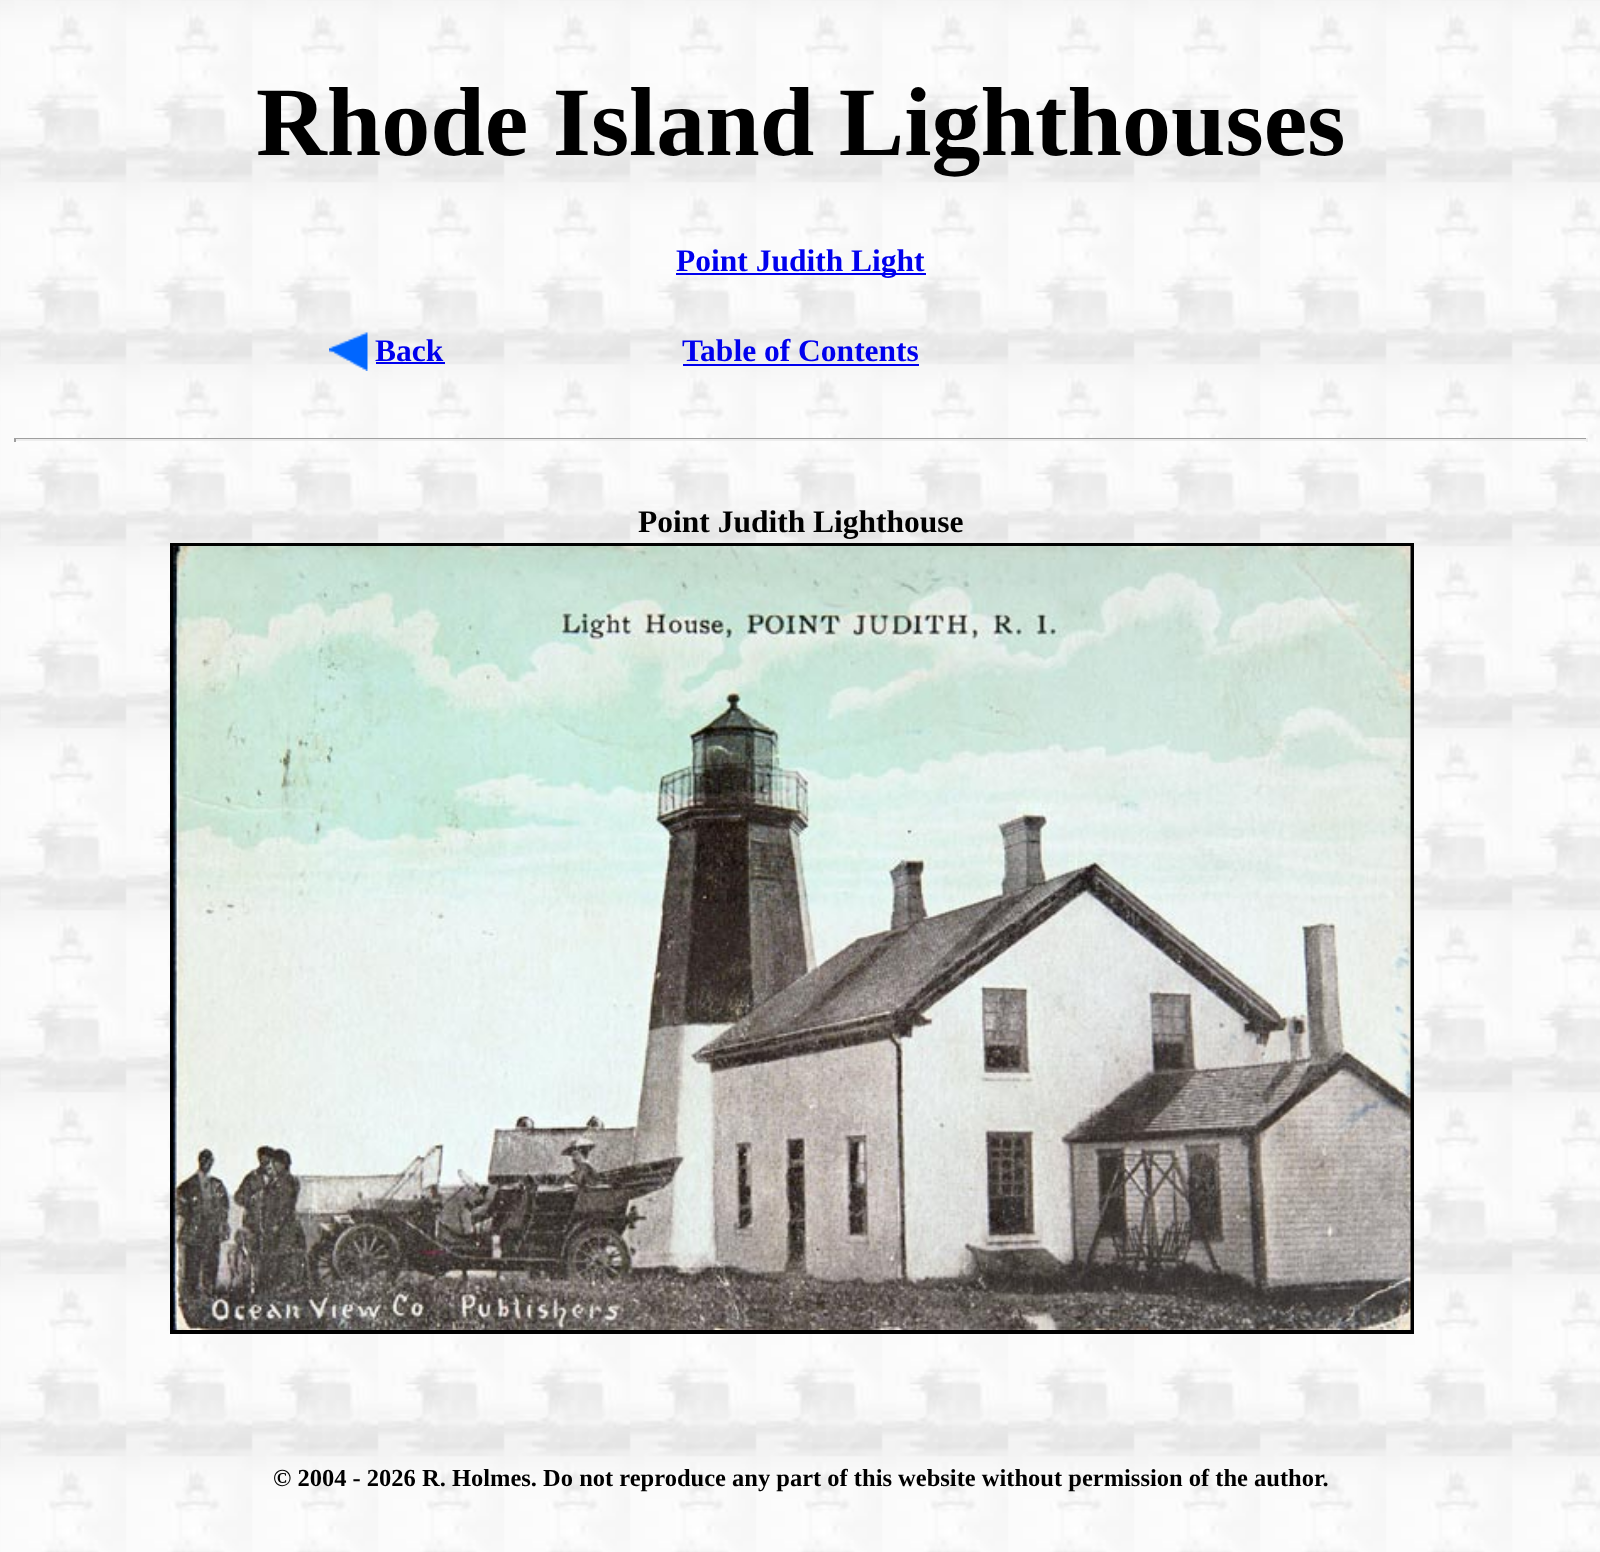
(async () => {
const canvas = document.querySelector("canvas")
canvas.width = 1600
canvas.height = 1552
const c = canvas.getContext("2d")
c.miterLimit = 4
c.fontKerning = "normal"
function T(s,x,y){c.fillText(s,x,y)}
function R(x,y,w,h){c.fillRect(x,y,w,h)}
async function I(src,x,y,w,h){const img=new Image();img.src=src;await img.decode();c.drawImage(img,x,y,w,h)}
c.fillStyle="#fff"
R(0,0,1600,1552)
await I("1.png",0,0,1600,1552)
c.font="bold 98px Liberation Serif"
c.fillStyle="#000"
T("Rhode Island Lighthouses",256,155)
c.fillStyle="#00e"
R(676,273,250,2)
c.font="bold 31.5px Liberation Serif"
T("Point Judith Light",676,271)
await I("2.png",329,332,39,39)
T("Back",375,361)
R(376,362,69,2)
T("Table of Contents",682,361)
R(683,364,236,2)
c.fillStyle="#9f9f9f"
R(14,438,1573,1)
c.fillStyle="#eee"
R(1586,438,2,4)
R(14,439,1573,2)
c.fillStyle="#9f9f9f"
R(14,438,2,4)
c.fillStyle="#000"
T("Point Judith Lighthouse",638,532)
c.strokeStyle="#000"
c.lineWidth=4
c.strokeRect(172,545,1240,787)
await I("3.png",173,546,1238,784)
c.font="bold 24.5px Liberation Serif"
T("© 2004 - 2026 R. Holmes. Do not reproduce any part of this website without permission of the author.",273,1486)
})()
